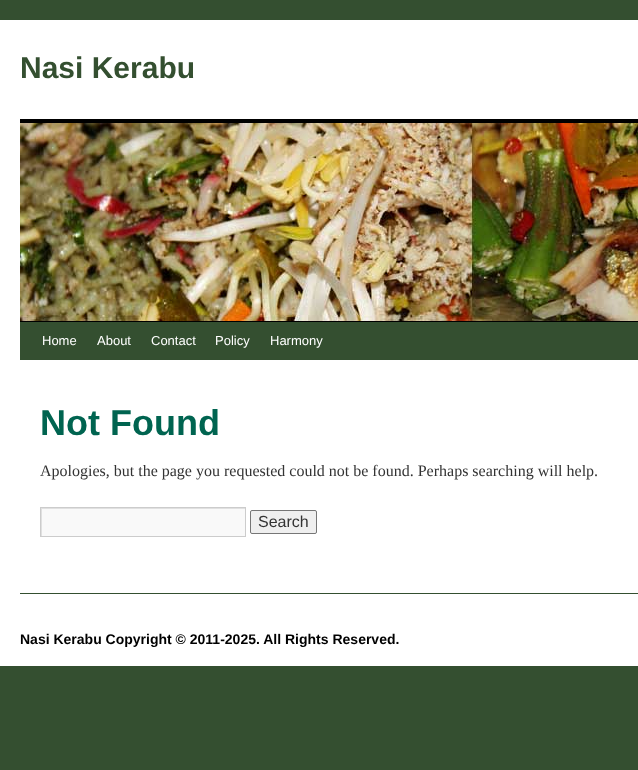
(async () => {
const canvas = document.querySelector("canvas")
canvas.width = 638
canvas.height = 770
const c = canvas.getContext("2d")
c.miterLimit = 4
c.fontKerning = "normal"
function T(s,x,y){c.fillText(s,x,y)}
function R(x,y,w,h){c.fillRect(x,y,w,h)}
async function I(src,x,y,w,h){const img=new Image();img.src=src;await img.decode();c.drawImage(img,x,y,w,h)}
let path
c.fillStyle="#344f30"
R(0,0,638,770)
c.fillStyle="#fff"
R(0,20,638,646)
c.font="bold 30px Liberation Sans"
c.fillStyle="#344f30"
T("Nasi Kerabu",20,78)
c.fillStyle="#000"
R(20,119,618,4)
R(20,321,618,1)
await I("1.png",20,123,618,198)
c.fillStyle="#344f30"
R(20,322,618,38)
c.font="13px Liberation Sans"
c.fillStyle="#fff"
T("Home",42,345)
T("About",97,345)
T("Contact",151,345)
T("Policy",215,345)
T("Harmony",270,345)
c.font="bold 36px Liberation Sans"
c.fillStyle="#006450"
T("Not Found",40,435)
c.font="16px Liberation Serif"
c.fillStyle="#333"
T("Apologies, but the page you requested could not be found. Perhaps searching will help.",40,476)
c.fillStyle="#f9f9f9"
R(42,509,203,27)
c.save()
c.beginPath()
c.rect(41,508,204,28)
c.clip()
c.fillStyle="#e0e0e0"
path = new Path2D("M-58 409h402v226h-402zm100 100h204v28h-204z")
c.fill(path,"evenodd")
c.restore()
c.strokeStyle="#ccc"
c.strokeRect(40.5,507.5,205,29)
c.fillStyle="#efefef"
c.beginPath()
c.roundRect(250.5,510.5,66,23,1.5)
c.fill()
c.strokeStyle="#767676"
c.stroke()
c.font="16px Liberation Sans"
c.fillStyle="#333"
T("Search",258,527)
c.fillStyle="#344f30"
R(20,593,618,1)
c.font="bold 14px Liberation Sans"
c.fillStyle="#000"
T("Nasi Kerabu Copyright © 2011-2025. All Rights Reserved.",20,644)
})()
